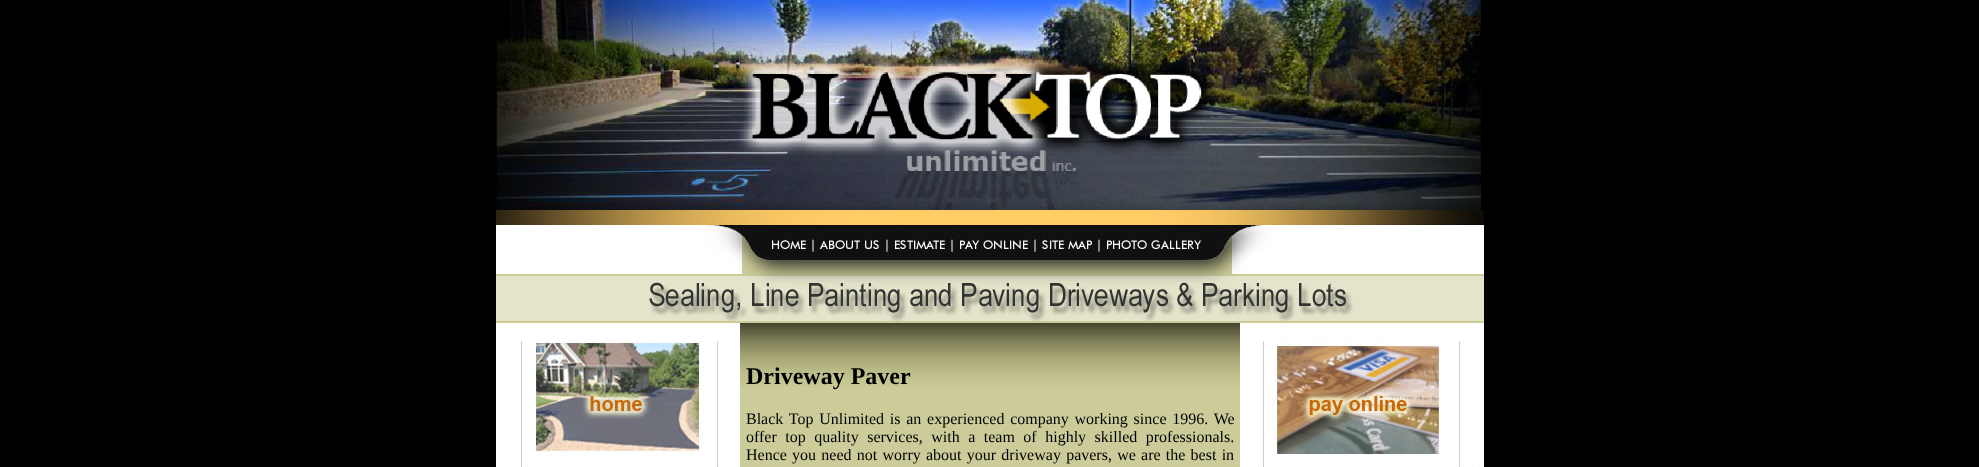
(async () => {
const canvas = document.querySelector("canvas")
canvas.width = 1979
canvas.height = 467
const c = canvas.getContext("2d")
c.miterLimit = 4
c.fontKerning = "normal"
function T(s,x,y){c.fillText(s,x,y)}
function R(x,y,w,h){c.fillRect(x,y,w,h)}
async function I(src,x,y,w,h){const img=new Image();img.src=src;await img.decode();c.drawImage(img,x,y,w,h)}
c.fillStyle="#000"
R(0,0,1979,467)
await I("1.png",496,0,985,210)
await I("2.png",496,210,988,15)
c.fillStyle="#fff"
R(496,225,208,49)
await I("3.png",704,225,60,49)
await I("4.png",764,225,49,49)
await I("5.png",813,225,74,49)
await I("6.png",887,225,66,49)
await I("7.png",953,225,83,49)
await I("8.png",1036,225,64,49)
await I("9.png",1100,225,116,49)
await I("10.png",1216,225,60,49)
R(1276,225,208,49)
await I("11.png",496,274,988,49)
R(496,323,988,144)
await I("12.png",521,341,197,115)
await I("13.png",521,456,208,11)
c.fillStyle="#cccc9a"
R(740,387,500,80)
await I("14.png",740,323,500,64)
c.font="bold 24px Liberation Serif"
c.fillStyle="#000"
T("Driveway Paver",746,384)
c.wordSpacing="1.75px"
c.font="16px Liberation Serif"
T("Black Top Unlimited is an experienced company working since 1996. We",746,424)
c.wordSpacing="4.5px"
T("offer top quality services, with a team of highly skilled professionals.",746,442)
c.wordSpacing="1.25px"
T("Hence you need not worry about your driveway pavers, we are the best in",746,460)
await I("15.png",1263,341,197,115)
await I("16.png",1258,456,222,11)
})()
